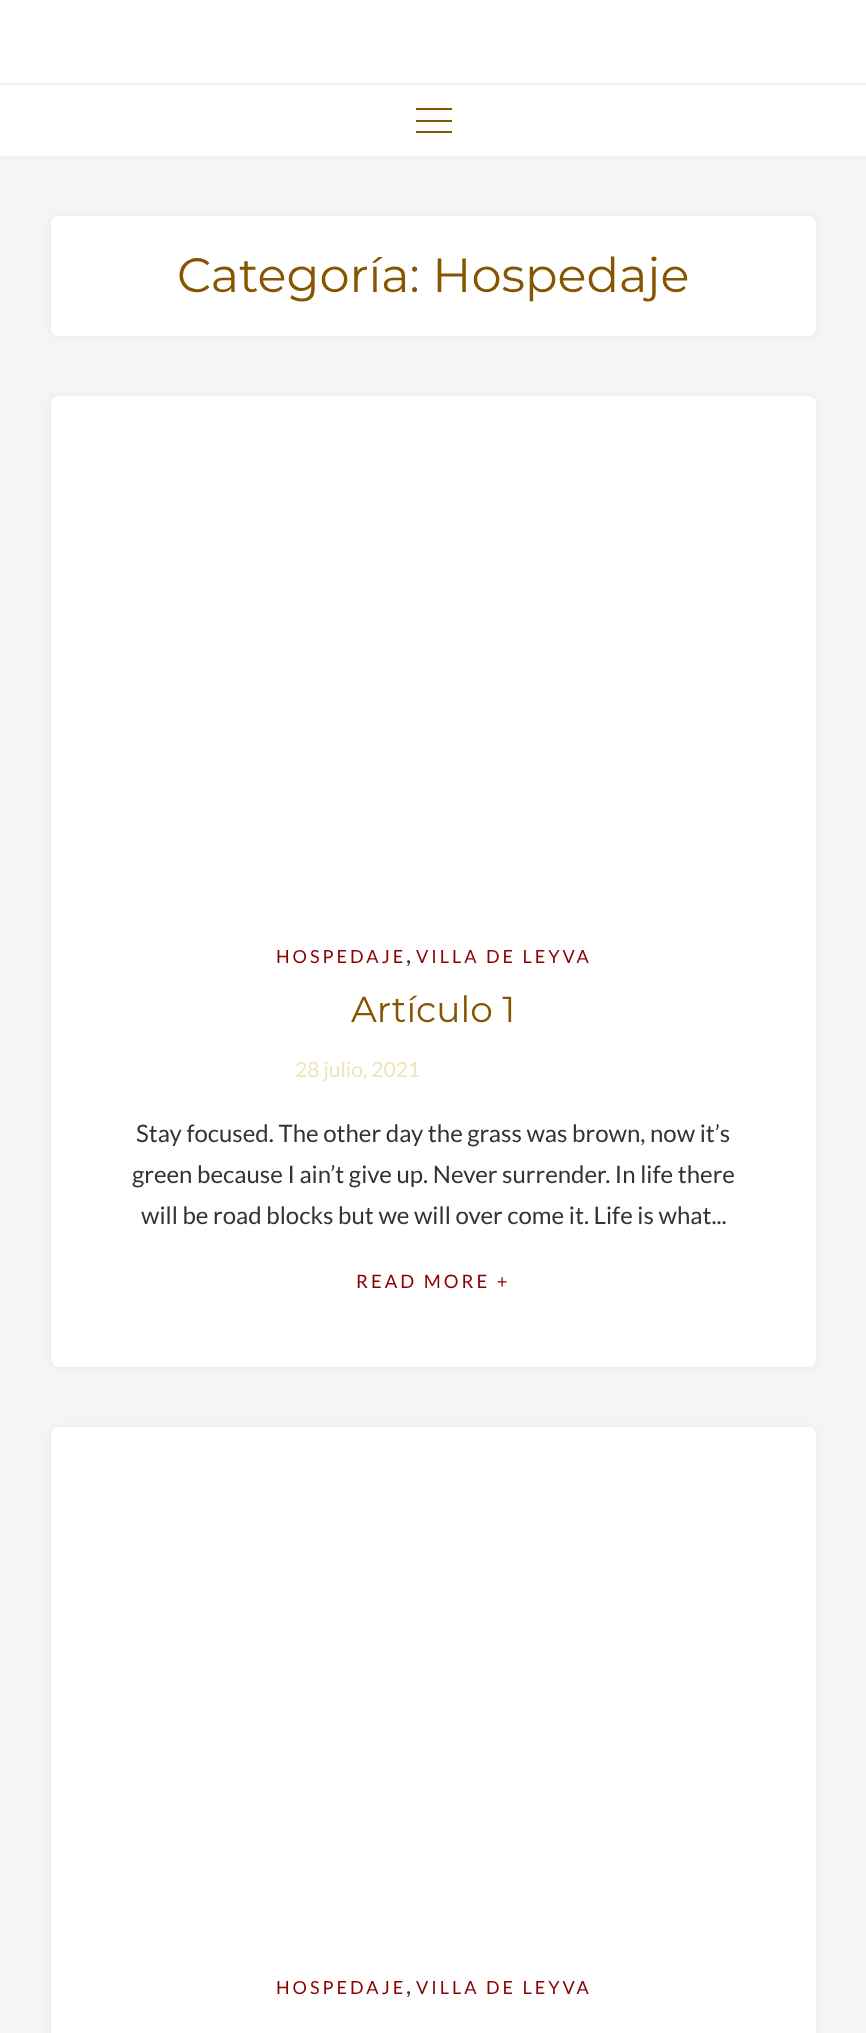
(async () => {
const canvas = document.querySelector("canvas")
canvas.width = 866
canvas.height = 2033
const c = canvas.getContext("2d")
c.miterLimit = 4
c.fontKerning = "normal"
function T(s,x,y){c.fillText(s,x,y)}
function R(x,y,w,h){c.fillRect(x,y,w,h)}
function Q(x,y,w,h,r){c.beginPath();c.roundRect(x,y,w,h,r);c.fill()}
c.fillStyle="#f5f5f5"
R(0,0,866,2033)
c.fillStyle="#0000000f"
c.filter="blur(4px)"
c.beginPath()
c.rect(0,0,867,156)
c.fill()
c.filter="none"
c.fillStyle="#fff"
R(0,0,866,156)
c.fillStyle="#eee"
R(0,83,866,2)
c.fillStyle="#875500"
R(416,108,36,2)
R(416,120,36,2)
R(416,131,36,2)
c.fillStyle="#0000000f"
c.filter="blur(4px)"
c.beginPath()
c.roundRect(51,216,765,120,8)
c.fill()
c.filter="none"
c.fillStyle="#fff"
Q(51,216,765,120,8)
c.font="48px Montserrat"
c.fillStyle="#875500"
T("Categoría: Hospedaje",177,292)
c.fillStyle="#0000000f"
c.filter="blur(4px)"
c.beginPath()
c.roundRect(51,396,765,971,8)
c.fill()
c.filter="none"
c.fillStyle="#fff"
Q(51,396,765,971,8)
c.letterSpacing="3px"
c.font="18px Lato"
c.fillStyle="#8c0000"
T("HOSPEDAJE",276,963)
c.letterSpacing="0px"
c.font="24px Lato"
c.fillStyle="#333"
T(",",406,963)
c.letterSpacing="3px"
c.font="18px Lato"
c.fillStyle="#8c0000"
T("VILLA DE LEYVA",416,963)
c.letterSpacing="0px"
c.font="36px Montserrat"
c.fillStyle="#875500"
T("Artículo 1",351,1022)
c.font="21px Lato"
c.fillStyle="#eee5be"
T("28 julio, 2021",295,1077)
c.font="24px Lato"
c.fillStyle="#333"
T("Stay focused. The other day the grass was brown, now it’s",136,1142)
T("green because I ain’t give up. Never surrender. In life there",132,1183)
T("will be road blocks but we will over come it. Life is what...",141,1224)
c.letterSpacing="3px"
c.font="18.5px Lato"
c.fillStyle="#8c0000"
T("READ MORE +",356,1288)
c.fillStyle="#0000000f"
c.filter="blur(4px)"
c.beginPath()
c.roundRect(51,1427,765,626,8)
c.fill()
c.filter="none"
c.fillStyle="#fff"
Q(51,1427,765,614,8)
c.font="18px Lato"
c.fillStyle="#8c0000"
T("HOSPEDAJE",276,1994)
c.letterSpacing="0px"
c.font="24px Lato"
c.fillStyle="#333"
T(",",406,1994)
c.letterSpacing="3px"
c.font="18px Lato"
c.fillStyle="#8c0000"
T("VILLA DE LEYVA",416,1994)
})()
